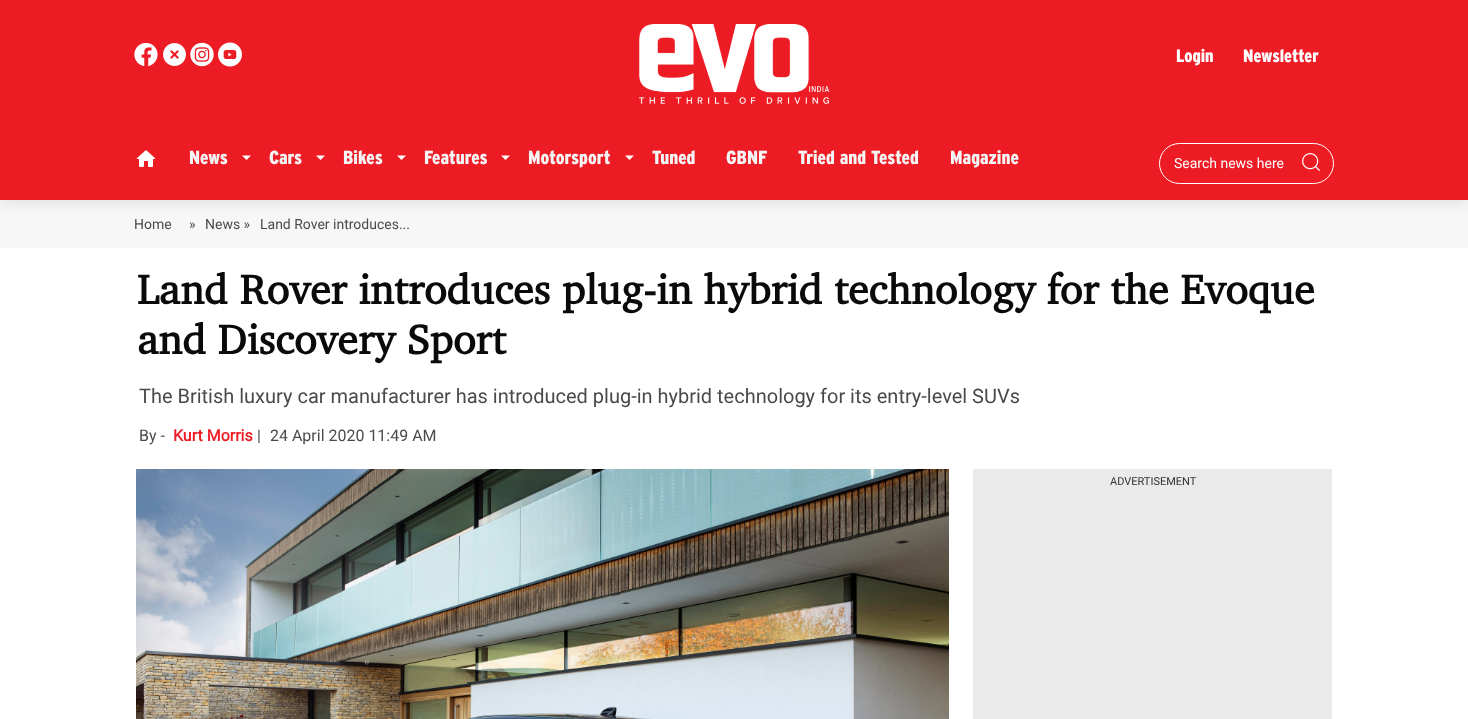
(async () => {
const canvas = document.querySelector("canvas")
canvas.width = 1468
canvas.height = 719
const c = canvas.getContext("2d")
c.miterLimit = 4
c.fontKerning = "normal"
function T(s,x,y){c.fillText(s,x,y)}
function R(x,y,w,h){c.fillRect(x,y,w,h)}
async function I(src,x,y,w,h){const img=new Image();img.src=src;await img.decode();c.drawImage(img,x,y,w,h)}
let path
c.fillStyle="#fff"
R(0,0,1468,719)
c.fillStyle="#f7f7f7"
R(0,200,1468,48)
c.fillStyle="#00000014"
c.filter="blur(7px)"
c.beginPath()
c.rect(0,4,1468,200)
c.fill()
c.filter="none"
c.fillStyle="#ed1c24"
R(0,0,1468,200)
await I("1.png",134,43,24,23)
await I("2.png",163,43,23,23)
await I("3.png",190,42,24,25)
await I("4.png",218,42,24,25)
await I("5.png",639,24,190,80)
c.font="900 18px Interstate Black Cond"
c.fillStyle="#fff"
T("Login",1176,62)
T("Newsletter",1243,62)
await I("6.png",136,150,20,17)
c.font="900 19px Interstate Black Cond"
c.fillStyle="#f5f5f5"
T("News",189,164)
c.fillStyle="#fff"
path = new Path2D("M242 155.5l4.5 4.5l4.5-4.5")
c.fill(path)
c.fillStyle="#f5f5f5"
T("Cars",269,164)
c.fillStyle="#fff"
path = new Path2D("M316 155.5l4.5 4.5l4.5-4.5")
c.fill(path)
c.fillStyle="#f5f5f5"
T("Bikes",343,164)
c.fillStyle="#fff"
path = new Path2D("M397 155.5l4.5 4.5l4.5-4.5")
c.fill(path)
c.fillStyle="#f5f5f5"
T("Features",424,164)
c.fillStyle="#fff"
path = new Path2D("M501 155.5l4.5 4.5l4.5-4.5")
c.fill(path)
c.fillStyle="#f5f5f5"
T("Motorsport",528,164)
c.fillStyle="#fff"
path = new Path2D("M625 155.5l4.5 4.5l4.5-4.5")
c.fill(path)
c.fillStyle="#f5f5f5"
T("Tuned",652,164)
T("GBNF",726,164)
T("Tried and Tested",798,164)
T("Magazine",950,164)
c.beginPath()
c.roundRect(1159.5,143.5,174,40,20)
c.strokeStyle="#fff"
c.stroke()
c.font="14px Roboto"
c.fillStyle="#fff"
T("Search news here",1174,168)
await I("7.png",1302,153,18,18)
c.fillStyle="#4a4a4a"
T("Home",134,229)
T("»",189,229)
T("News »",205,229)
T("Land Rover introduces...",260,229)
c.font="bold 42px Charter"
c.fillStyle="#0a0a0a"
T("Land Rover introduces plug-in hybrid technology for the Evoque",137,304)
T("and Discovery Sport",137,354)
c.font="20px Roboto"
c.fillStyle="#4a4a4a"
T("The British luxury car manufacturer has introduced plug-in hybrid technology for its entry-level SUVs",139,403)
c.font="16px Roboto"
T("By -",139,441)
c.font="bold 16px Roboto"
c.fillStyle="#ed1c25"
T("Kurt Morris",173,441)
c.font="16px Roboto"
c.fillStyle="#4a4a4a"
T("|",257,441)
T("24 April 2020 11:49 AM",270,441)
await I("8.png",136,469,813,250)
c.fillStyle="#eaeaea"
R(973,469,359,250)
c.font="11px Roboto"
c.fillStyle="#323232"
T("ADVERTISEMENT",1110,485)
})()
